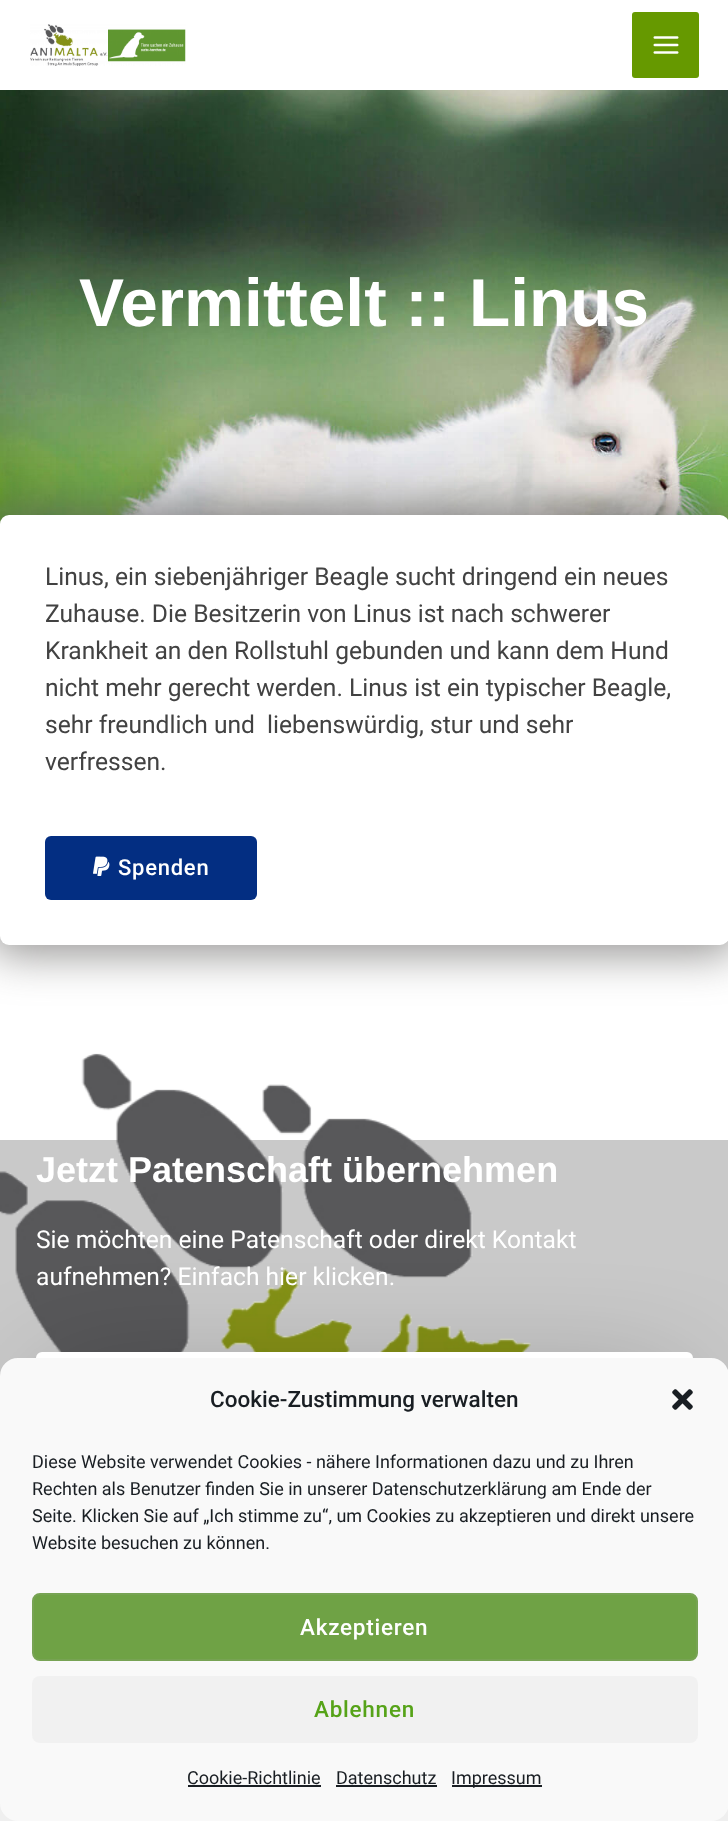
(async () => {
const canvas = document.querySelector("canvas")
canvas.width = 728
canvas.height = 1821
const c = canvas.getContext("2d")
c.miterLimit = 4
c.fontKerning = "normal"
function T(s,x,y){c.fillText(s,x,y)}
function R(x,y,w,h){c.fillRect(x,y,w,h)}
function Q(x,y,w,h,r){c.beginPath();c.roundRect(x,y,w,h,r);c.fill()}
async function I(src,x,y,w,h){const img=new Image();img.src=src;await img.decode();c.drawImage(img,x,y,w,h)}
c.fillStyle="#fff"
R(0,0,728,1821)
await I("1.png",30,24,156,42)
c.fillStyle="#690"
Q(632,12,67,66,3)
await I("2.png",653,36,26,18)
await I("3.png",0,90,728,434)
c.font="bold 67.5px Liberation Sans"
c.fillStyle="#fff"
T("Vermittelt :: Linus",79,326)
c.fillStyle="#5b5a58a8"
c.filter="blur(22.5px)"
c.beginPath()
c.roundRect(-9,506,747,448,18)
c.fill()
c.filter="none"
c.fillStyle="#fff"
Q(0,515,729,430,9)
c.font="24.6px Roboto"
c.fillStyle="#424242"
T("Linus, ein siebenjähriger Beagle sucht dringend ein neues",45,585)
T("Zuhause. Die Besitzerin von Linus ist nach schwerer",45,622)
T("Krankheit an den Rollstuhl gebunden und kann dem Hund",45,659)
T("nicht mehr gerecht werden. Linus ist ein typischer Beagle,",45,696)
T("sehr freundlich und  liebenswürdig, stur und sehr",45,733)
T("verfressen.",45,770)
c.fillStyle="#032e82"
Q(45,836,212,64,6)
await I("4.png",93,856,17,20)
c.letterSpacing="0.75px"
c.font="500 22px Roboto"
c.fillStyle="#fff"
T("Spenden",118,875)
c.fillStyle="#c9c9c9"
R(0,1140,728,236)
await I("5.png",0,1053,531,299)
c.letterSpacing="0px"
c.font="bold 36px Liberation Sans"
c.fillStyle="#fff"
T("Jetzt Patenschaft übernehmen",36,1182)
c.fillStyle="#00000080"
c.filter="blur(60px)"
c.beginPath()
c.rect(48,1400,633,42)
c.fill()
c.filter="none"
c.fillStyle="#fff"
c.beginPath()
c.roundRect(37,1353,655,64,5)
c.fill()
c.strokeStyle="#fff"
c.lineWidth=2
c.stroke()
c.font="24.6px Roboto"
T("Sie möchten eine Patenschaft oder direkt Kontakt",36,1248)
T("aufnehmen? Einfach hier klicken.",36,1285)
c.fillStyle="#efefef"
R(0,1803,728,18)
c.fillStyle="#f9f9f9"
c.beginPath()
c.roundRect(1,1359,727,461,17)
c.fill()
c.strokeStyle="#f9f9f9"
c.stroke()
c.font="500 22.5px Roboto"
c.fillStyle="#191e23"
T("Cookie-Zustimmung verwalten",210,1407)
await I("6.png",672,1389,21,21)
c.font="18px Roboto"
T("Diese Website verwendet Cookies - nähere Informationen dazu und zu Ihren",32,1468)
T("Rechten als Benutzer finden Sie in unserer Datenschutzerklärung am Ende der",32,1495)
T("Seite. Klicken Sie auf „Ich stimme zu“, um Cookies zu akzeptieren und direkt unsere",32,1522)
T("Website besuchen zu können.",32,1549)
c.fillStyle="#6fa245"
c.beginPath()
c.roundRect(33,1594,664,66,7)
c.fill()
c.strokeStyle="#77a353"
c.stroke()
c.letterSpacing="0.75px"
c.font="500 22.5px Roboto"
c.fillStyle="#fff"
T("Akzeptieren",300,1635)
c.fillStyle="#f1f1f1"
Q(32,1676,666,67,8)
c.fillStyle="#56a318"
T("Ablehnen",314,1717)
c.letterSpacing="0px"
c.font="18px Roboto"
c.fillStyle="#191e23"
T("Cookie-Richtlinie",187,1784)
R(188,1785,133,2)
T("Datenschutz",336,1784)
R(336,1785,101,2)
R(452,1785,90,2)
T("Impressum",451,1784)
})()
